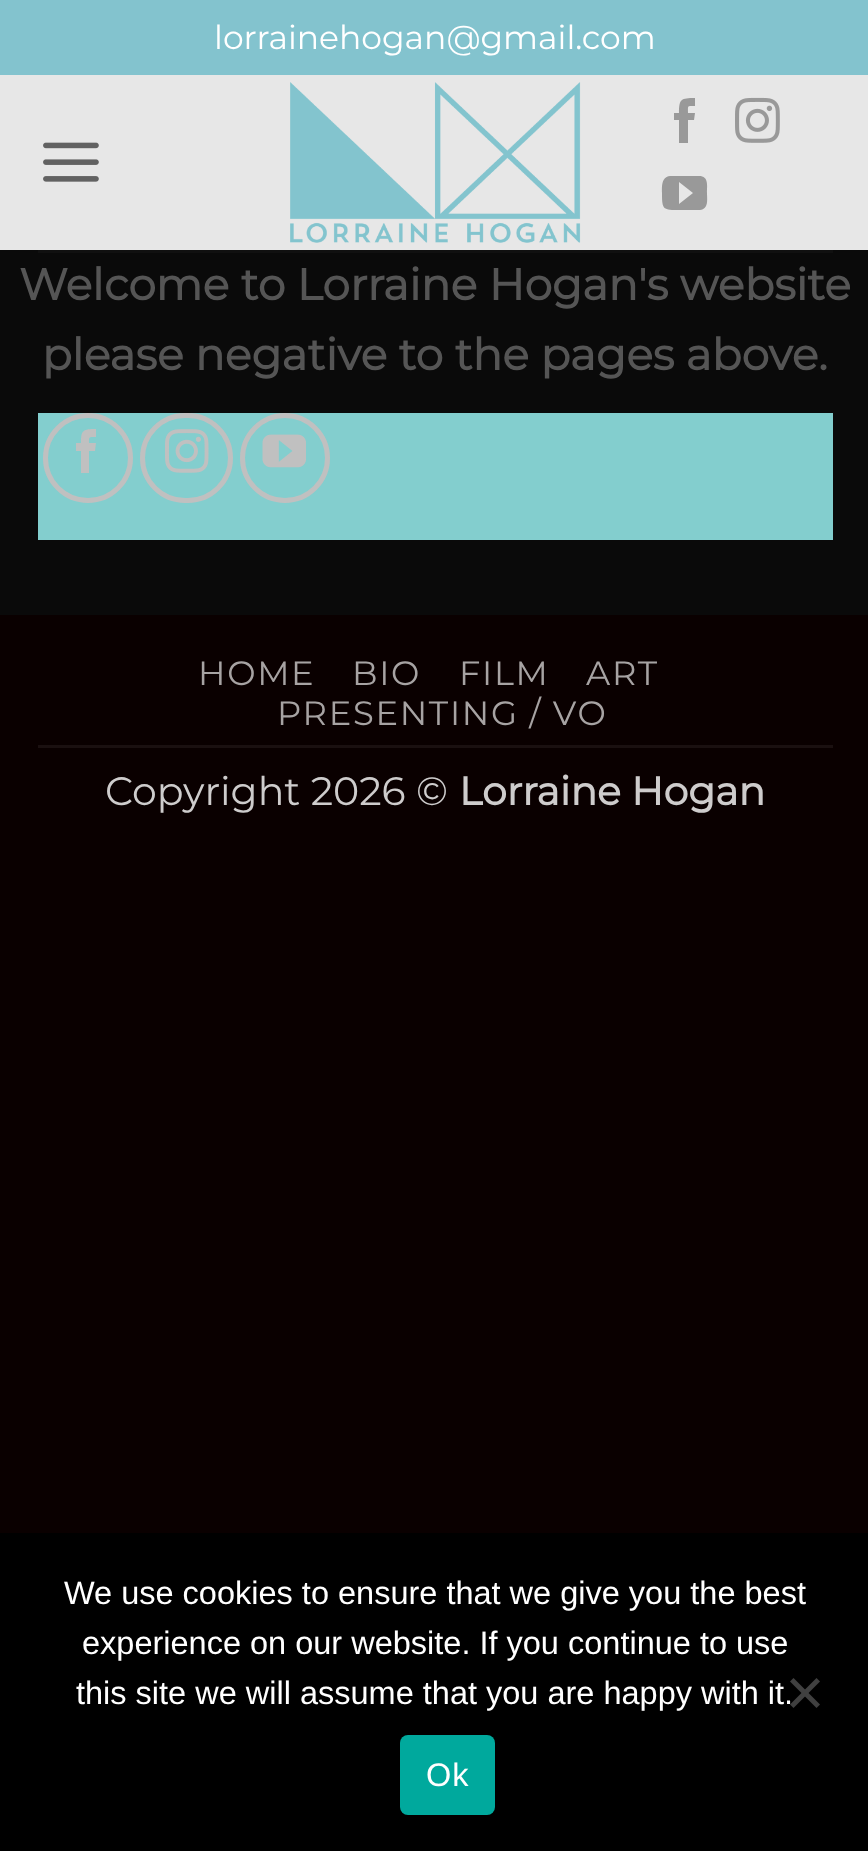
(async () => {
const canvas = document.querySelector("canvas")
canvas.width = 868
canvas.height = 1851
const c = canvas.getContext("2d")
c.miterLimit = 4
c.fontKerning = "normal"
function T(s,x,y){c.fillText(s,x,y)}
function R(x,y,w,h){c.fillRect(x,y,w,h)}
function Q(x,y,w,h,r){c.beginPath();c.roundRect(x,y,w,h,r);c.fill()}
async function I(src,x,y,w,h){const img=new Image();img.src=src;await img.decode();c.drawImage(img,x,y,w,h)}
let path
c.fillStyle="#0a0000"
R(0,0,868,1851)
c.fillStyle="#0a0a0a"
R(0,250,868,365)
c.fillStyle="#83c3ce"
R(0,0,868,75)
c.font="100 33px Montserrat"
c.fillStyle="#fff"
T("lorrainehogan@gmail.com",214,49)
c.fillStyle="#e7e7e7"
R(0,75,868,175)
await I("1.png",43,142,56,40)
await I("2.png",290,82,291,161)
c.fillStyle="#999"
path = new Path2D("M688 143h-9v-23h-5v-7h5c0-14 2-15 16-15v8c-8 0-7-1-7 7h7l-1 7h-6z")
c.fill(path)
await I("3.png",735,97,45,46)
path = new Path2D("M699 176h-29c-9 1-8 11-8 17c0 17 1 17 18 17h20c9-1 7-11 7-17c0-7 2-17-8-17zm-20 28v-22l14 11z")
c.fill(path)
c.fillStyle="#101010"
R(38,250,795,3)
c.font="bold 44px Montserrat"
c.fillStyle="#555"
T("Welcome to Lorraine Hogan's website",19,300)
T("please negative to the pages above.",42,370)
c.fillStyle="#83cece"
R(38,413,795,127)
c.beginPath()
c.arc(88,458,42.5,0,7)
c.strokeStyle="#c0c0c0"
c.lineWidth=5
c.stroke()
c.fillStyle="#c0c0c0"
path = new Path2D("M89 473h-8v-22h-5v-8h5c0-13 2-14 15-14v8c-7 0-7-1-7 6h7l-1 8h-6z")
c.fill(path)
c.beginPath()
c.roundRect(142.5,415.5,88,85,42.5)
c.stroke()
await I("4.png",165,429,44,44)
c.beginPath()
c.arc(285,458,42.5,0,7)
c.stroke()
await I("5.png",262,434,44,34)
c.fillStyle="#1a1010"
R(38,745,795,3)
c.letterSpacing="1.7px"
c.font="100 33.75px Montserrat"
c.fillStyle="#a7a3a3"
T("HOME",198,685)
T("BIO",352,685)
T("FILM",459,685)
T("ART",586,685)
T("PRESENTING / VO",277,725)
c.letterSpacing="0px"
c.font="100 39.5px Montserrat"
c.fillStyle="#cecccc"
T("Copyright 2026 ©",105,805)
c.font="bold 39.5px Montserrat"
T("Lorraine Hogan",459,805)
c.fillStyle="#000"
R(0,1533,868,318)
c.font="32.5px Liberation Sans"
c.fillStyle="#fff"
T("We use cookies to ensure that we give you the best",64,1604)
T("experience on our website. If you continue to use",82,1654)
T("this site we will assume that you are happy with it.",76,1704)
c.fillStyle="#404040"
path = new Path2D("M816.5 1678l3.5 3.5l-26.5 26.5l-3.5-3.5z")
c.fill(path)
path = new Path2D("M790 1681.5l3.5-3.5l26.5 26.5l-3.5 3.5z")
c.fill(path)
c.fillStyle="#00a99d"
Q(400,1735,95,80,8)
c.letterSpacing="1px"
c.fillStyle="#fff"
T("Ok",426,1786)
})()
